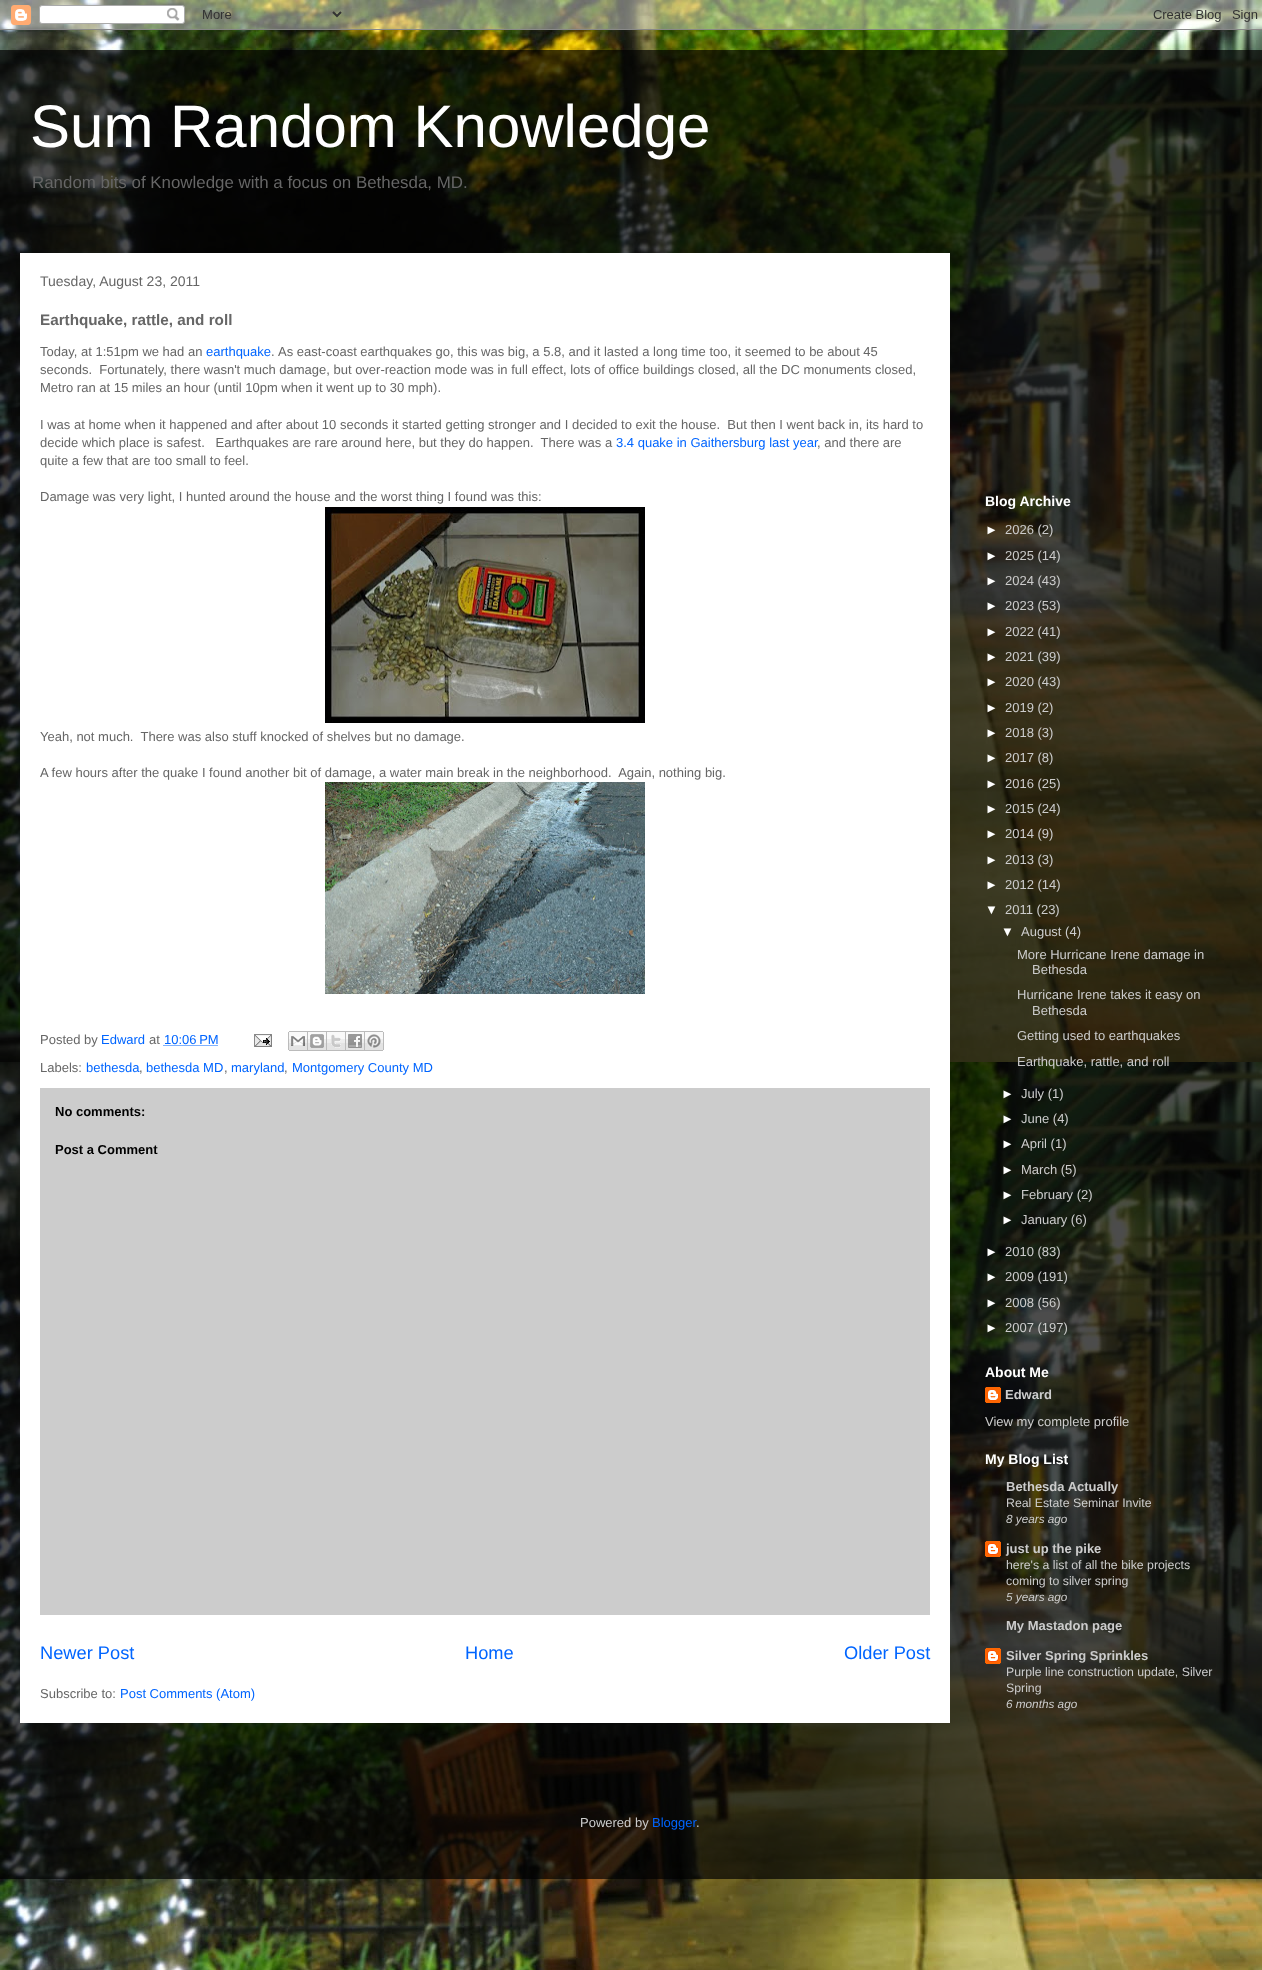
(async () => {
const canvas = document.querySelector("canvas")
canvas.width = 1262
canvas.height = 1970
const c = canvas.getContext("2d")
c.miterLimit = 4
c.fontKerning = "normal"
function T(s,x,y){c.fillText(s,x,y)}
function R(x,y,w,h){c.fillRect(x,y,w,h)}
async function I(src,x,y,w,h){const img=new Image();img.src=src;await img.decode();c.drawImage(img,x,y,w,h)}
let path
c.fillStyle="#fff"
R(0,0,1262,1970)
await I("1.png",0,0,1262,1970)
await I("2.png",0,0,1262,30)
c.font="60px Liberation Sans"
T("Sum Random Knowledge",30,147)
c.font="16.9px Liberation Sans"
c.fillStyle="#666"
T("Random bits of Knowledge with a focus on Bethesda, MD.",32,188)
c.fillStyle="#fff"
R(20,253,930,1470)
c.font="14px Liberation Sans"
c.fillStyle="#666"
T("Tuesday, August 23, 2011",40,286)
c.font="bold 15.25px Liberation Sans"
T("Earthquake, rattle, and roll",40,325)
c.font="13px Liberation Sans"
T("Today, at 1:51pm we had an",40,356)
c.fillStyle="#0065ff"
T("earthquake",206,356)
c.fillStyle="#666"
T(".",271,356)
T("As east-coast earthquakes go, this was big, a 5.8, and it lasted a long time too, it seemed to be about 45",278,356)
T("seconds.  Fortunately, there wasn't much damage, but over-reaction mode was in full effect, lots of office buildings closed, all the DC monuments closed,",40,374)
T("Metro ran at 15 miles an hour (until 10pm when it went up to 30 mph).",40,392)
T("I was at home when it happened and after about 10 seconds it started getting stronger and I decided to exit the house.  But then I went back in, its hard to",40,429)
T("decide which place is safest.   Earthquakes are rare around here, but they do happen.  There was a",40,447)
c.fillStyle="#0065ff"
T("3.4 quake in Gaithersburg last year",616,447)
c.fillStyle="#666"
T(", and there are",817,447)
T("quite a few that are too small to feel.",40,465)
T("Damage was very light, I hunted around the house and the worst thing I found was this:",40,501)
await I("3.png",325,507,320,216)
T("Yeah, not much.  There was also stuff knocked of shelves but no damage.",40,741)
T("A few hours after the quake I found another bit of damage, a water main break in the neighborhood.  Again, nothing big.",40,777)
await I("4.png",325,782,320,212)
T("Posted by",40,1044)
c.fillStyle="#0065ff"
T("Edward",101,1044)
c.fillStyle="#666"
T("at",149,1044)
c.fillStyle="#0065ff"
T("10:06 PM",164,1044)
path = new Path2D("M163.5 1045.5h54.5")
c.strokeStyle="#0065ff"
c.setLineDash([1,1])
c.stroke(path)
await I("5.png",254,1034,18,13)
await I("6.png",288,1031,20,20)
await I("7.png",308,1031,19,20)
await I("8.png",327,1031,19,20)
await I("9.png",346,1031,19,20)
await I("10.png",365,1031,19,20)
c.fillStyle="#666"
T("Labels:",40,1072)
c.fillStyle="#0065ff"
T("bethesda",86,1072)
c.fillStyle="#666"
T(",",139,1072)
c.fillStyle="#0065ff"
T("bethesda MD",146,1072)
c.fillStyle="#666"
T(",",224,1072)
c.fillStyle="#0065ff"
T("maryland",231,1072)
c.fillStyle="#666"
T(",",284,1072)
c.fillStyle="#0065ff"
T("Montgomery County MD",292,1072)
c.fillStyle="#ccc"
R(40,1088,890,527)
c.font="bold 13px Liberation Sans"
c.fillStyle="#000"
T("No comments:",55,1116)
T("Post a Comment",55,1154)
c.font="18.25px Liberation Sans"
c.fillStyle="#0065ff"
T("Newer Post",40,1659)
T("Home",465,1659)
T("Older Post",844,1659)
c.font="13px Liberation Sans"
c.fillStyle="#666"
T("Subscribe to:",40,1698)
c.fillStyle="#0065ff"
T("Post Comments (Atom)",120,1698)
c.font="bold 14px Liberation Sans"
c.fillStyle="#fff"
T("Blog Archive",985,506)
c.font="13px Liberation Sans"
T("►",985,534)
c.fillStyle="#ccc"
T("2026 (2)",1005,534)
c.fillStyle="#fff"
T("►",985,560)
c.fillStyle="#ccc"
T("2025 (14)",1005,560)
c.fillStyle="#fff"
T("►",985,585)
c.fillStyle="#ccc"
T("2024 (43)",1005,585)
c.fillStyle="#fff"
T("►",985,610)
c.fillStyle="#ccc"
T("2023 (53)",1005,610)
c.fillStyle="#fff"
T("►",985,636)
c.fillStyle="#ccc"
T("2022 (41)",1005,636)
c.fillStyle="#fff"
T("►",985,661)
c.fillStyle="#ccc"
T("2021 (39)",1005,661)
c.fillStyle="#fff"
T("►",985,686)
c.fillStyle="#ccc"
T("2020 (43)",1005,686)
c.fillStyle="#fff"
T("►",985,712)
c.fillStyle="#ccc"
T("2019 (2)",1005,712)
c.fillStyle="#fff"
T("►",985,737)
c.fillStyle="#ccc"
T("2018 (3)",1005,737)
c.fillStyle="#fff"
T("►",985,762)
c.fillStyle="#ccc"
T("2017 (8)",1005,762)
c.fillStyle="#fff"
T("►",985,788)
c.fillStyle="#ccc"
T("2016 (25)",1005,788)
c.fillStyle="#fff"
T("►",985,813)
c.fillStyle="#ccc"
T("2015 (24)",1005,813)
c.fillStyle="#fff"
T("►",985,838)
c.fillStyle="#ccc"
T("2014 (9)",1005,838)
c.fillStyle="#fff"
T("►",985,864)
c.fillStyle="#ccc"
T("2013 (3)",1005,864)
c.fillStyle="#fff"
T("►",985,889)
c.fillStyle="#ccc"
T("2012 (14)",1005,889)
c.fillStyle="#fff"
T("▼",985,914)
c.fillStyle="#ccc"
T("2011 (23)",1005,914)
c.fillStyle="#fff"
T("▼",1001,936)
c.fillStyle="#ccc"
T("August (4)",1021,936)
T("More Hurricane Irene damage in",1017,959)
T("Bethesda",1032,974)
T("Hurricane Irene takes it easy on",1017,999)
T("Bethesda",1032,1015)
T("Getting used to earthquakes",1017,1040)
T("Earthquake, rattle, and roll",1017,1066)
c.fillStyle="#fff"
T("►",1001,1098)
c.fillStyle="#ccc"
T("July (1)",1021,1098)
c.fillStyle="#fff"
T("►",1001,1123)
c.fillStyle="#ccc"
T("June (4)",1021,1123)
c.fillStyle="#fff"
T("►",1001,1148)
c.fillStyle="#ccc"
T("April (1)",1021,1148)
c.fillStyle="#fff"
T("►",1001,1174)
c.fillStyle="#ccc"
T("March (5)",1021,1174)
c.fillStyle="#fff"
T("►",1001,1199)
c.fillStyle="#ccc"
T("February (2)",1021,1199)
c.fillStyle="#fff"
T("►",1001,1224)
c.fillStyle="#ccc"
T("January (6)",1021,1224)
c.fillStyle="#fff"
T("►",985,1256)
c.fillStyle="#ccc"
T("2010 (83)",1005,1256)
c.fillStyle="#fff"
T("►",985,1281)
c.fillStyle="#ccc"
T("2009 (191)",1005,1281)
c.fillStyle="#fff"
T("►",985,1307)
c.fillStyle="#ccc"
T("2008 (56)",1005,1307)
c.fillStyle="#fff"
T("►",985,1332)
c.fillStyle="#ccc"
T("2007 (197)",1005,1332)
c.font="bold 14px Liberation Sans"
c.fillStyle="#fff"
T("About Me",985,1377)
await I("11.png",985,1387,16,16)
c.font="bold 13px Liberation Sans"
c.fillStyle="#ccc"
T("Edward",1005,1399)
c.font="13px Liberation Sans"
T("View my complete profile",985,1426)
c.font="bold 14px Liberation Sans"
c.fillStyle="#fff"
T("My Blog List",985,1464)
c.font="bold 13px Liberation Sans"
c.fillStyle="#ccc"
T("Bethesda Actually",1006,1491)
c.font="12.3px Liberation Sans"
T("Real Estate Seminar Invite",1006,1507)
c.font="italic 11.75px Liberation Sans"
T("8 years ago",1006,1523)
await I("12.png",985,1541,16,16)
c.font="bold 13px Liberation Sans"
T("just up the pike",1006,1553)
c.font="12.3px Liberation Sans"
T("here's a list of all the bike projects",1006,1569)
T("coming to silver spring",1006,1585)
c.font="italic 11.75px Liberation Sans"
T("5 years ago",1006,1601)
c.font="bold 13px Liberation Sans"
T("My Mastadon page",1006,1630)
await I("13.png",985,1648,16,16)
T("Silver Spring Sprinkles",1006,1660)
c.font="12.3px Liberation Sans"
T("Purple line construction update, Silver",1006,1676)
T("Spring",1006,1692)
c.font="italic 11.75px Liberation Sans"
T("6 months ago",1006,1708)
c.font="13px Liberation Sans"
T("Powered by",580,1827)
c.fillStyle="#0065ff"
T("Blogger",652,1827)
c.fillStyle="#ccc"
T(".",696,1827)
})()
